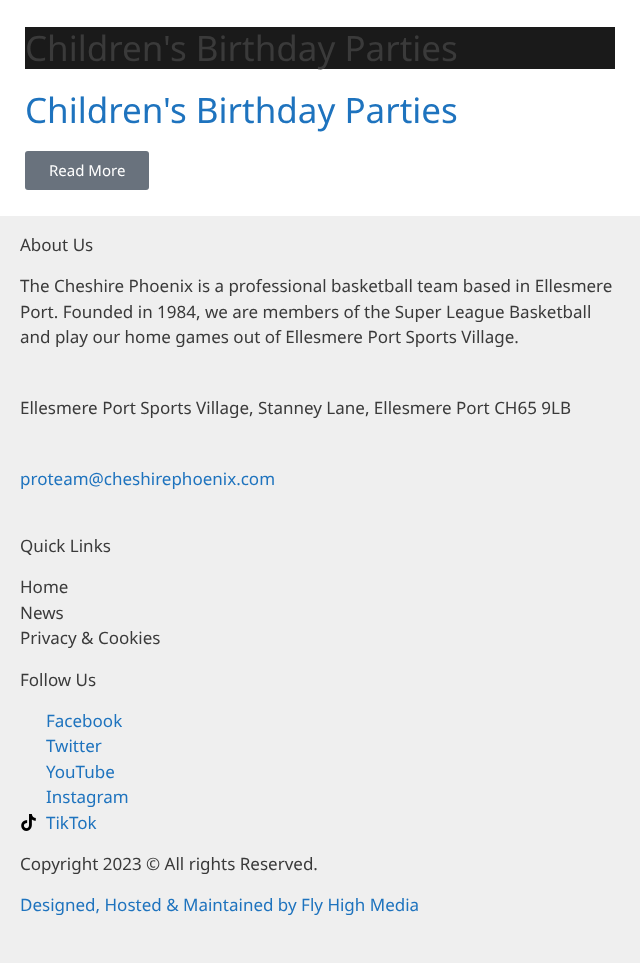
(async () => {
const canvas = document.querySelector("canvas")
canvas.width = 640
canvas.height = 963
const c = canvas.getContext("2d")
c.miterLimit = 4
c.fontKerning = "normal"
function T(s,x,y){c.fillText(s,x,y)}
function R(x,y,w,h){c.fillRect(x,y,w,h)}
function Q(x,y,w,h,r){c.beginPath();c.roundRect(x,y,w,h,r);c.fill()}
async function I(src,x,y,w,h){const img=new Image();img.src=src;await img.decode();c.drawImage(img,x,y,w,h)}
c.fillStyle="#efefef"
R(0,0,640,963)
c.fillStyle="#fff"
R(0,0,640,216)
c.fillStyle="#1a1a1a"
R(25,27,590,42)
c.font="35px Noto Sans"
c.fillStyle="#3a3a3a"
T("Children's Birthday Parties",25,61)
c.fillStyle="#1e73be"
T("Children's Birthday Parties",25,123)
c.fillStyle="#69727d"
Q(25,151,124,39,3)
c.font="15px Noto Sans"
c.fillStyle="#fff"
T("Read More",49,176)
c.font="17px Noto Sans"
c.fillStyle="#3a3a3a"
T("About Us",20,251)
T("The Cheshire Phoenix is a professional basketball team based in Ellesmere",20,292)
T("Port. Founded in 1984, we are members of the Super League Basketball",20,318)
T("and play our home games out of Ellesmere Port Sports Village.",20,343)
T("Ellesmere Port Sports Village, Stanney Lane, Ellesmere Port CH65 9LB",20,414)
c.fillStyle="#1e73be"
T("proteam@cheshirephoenix.com",20,485)
c.fillStyle="#3a3a3a"
T("Quick Links",20,552)
T("Home",20,593)
T("News",20,619)
T("Privacy & Cookies",20,644)
T("Follow Us",20,686)
c.fillStyle="#1e73be"
T("Facebook",46,727)
T("Twitter",46,752)
T("YouTube",46,778)
T("Instagram",46,803)
await I("1.png",21,814,15,17)
T("TikTok",46,829)
c.fillStyle="#3a3a3a"
T("Copyright 2023 © All rights Reserved.",20,870)
c.fillStyle="#1e73be"
T("Designed, Hosted & Maintained by Fly High Media",20,911)
})()
